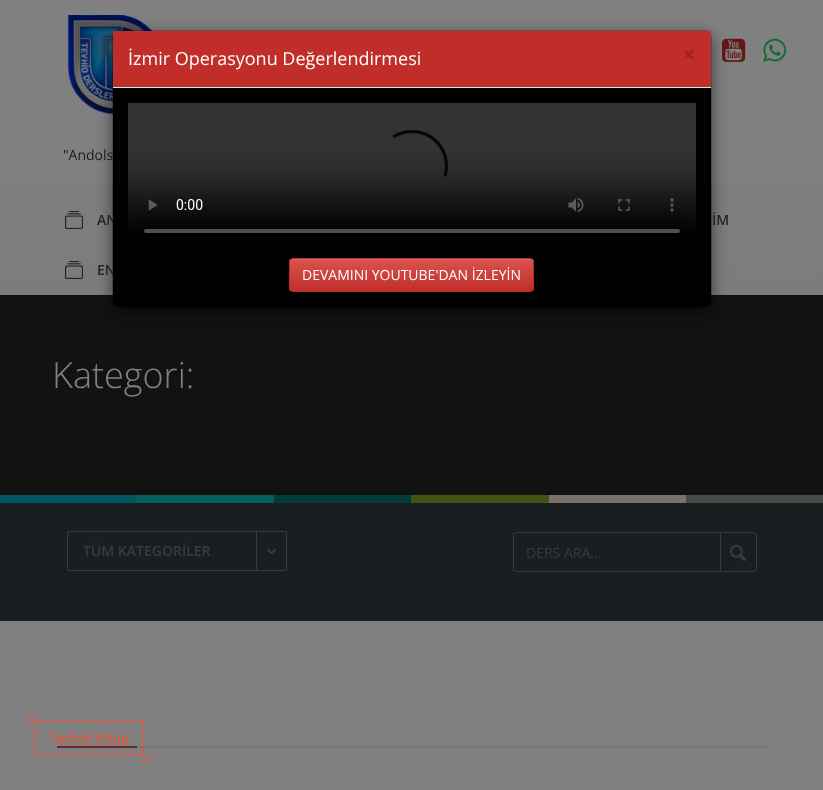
(async () => {
  const canvas = document.querySelector("canvas");
  canvas.width = 823;
  canvas.height = 790;
  const ctx = canvas.getContext("2d");
  ctx.miterLimit = 4;
  ctx.fontKerning = "normal";
  async function loadImage(src) {
    const img = new Image();
    img.src = src;
    await img.decode();
    return img;
  }
  let gradient, path;

  ctx.fillStyle = "#808080";
  ctx.fillRect(0, 0, 823, 790);
  gradient = ctx.createLinearGradient(412, 0, 412, 295);
  gradient.addColorStop(0, "#808080");
  gradient.addColorStop(1, "#7c7c7c");
  ctx.fillStyle = gradient;
  ctx.fillRect(0, 184, 823, 111);
  ctx.drawImage(await loadImage("img/2.png"), 67, 15, 86, 100);
  ctx.drawImage(await loadImage("img/3.png"), 722, 38, 24, 24);
  ctx.fillStyle = "#121212";
  ctx.fillRect(0, 295, 823, 200);
  ctx.fillStyle = "rgba(0, 0, 0, 0.5)";
  ctx.filter = "blur(7.5px)";
  ctx.beginPath();
  ctx.roundRect(112, 35, 600, 278, 6);
  ctx.fill();
  ctx.filter = "none";
  ctx.drawImage(await loadImage("img/4.png"), 763, 38, 24, 24);
  ctx.drawImage(await loadImage("img/5.png"), 65, 211, 18, 18);
  ctx.drawImage(await loadImage("img/6.png"), 65, 261, 18, 18);
  for (const [x, y, w, h, color] of [
    [0, 495, 137, 8, "#025760"],
    [137, 495, 137, 8, "#026060"],
    [274, 495, 137, 8, "#013a3a"],
    [411, 495, 138, 8, "#3f5315"],
    [549, 495, 137, 8, "#79726b"],
    [686, 495, 137, 8, "#4a4a4a"],
    [0, 503, 823, 118, "#191e21"],
  ]) {
    ctx.fillStyle = color;
    ctx.fillRect(x, y, w, h);
  }
  ctx.beginPath();
  ctx.roundRect(67.5, 531.5, 219, 39, 1.5);
  ctx.strokeStyle = "#363c41";
  ctx.stroke();
  ctx.drawImage(await loadImage("img/7.png"), 267, 549, 9, 5);
  ctx.fillStyle = "#363c41";
  ctx.fillRect(256, 532, 1, 38);
  ctx.beginPath();
  ctx.roundRect(513.5, 532.5, 207, 39, [3.5, 0, 0, 3.5]);
  ctx.stroke();
  path = new Path2D("M721 532H753C755 532 757 534 757 536V568C757 570 755 572 753 572H721ZM721 533H753C755 533 756 534 756 536V568C756 570 755 571 753 571H721Z");
  ctx.fill(path, "evenodd");
  ctx.drawImage(await loadImage("img/8.png"), 730, 545, 16, 16);
  ctx.fillStyle = "#747677";
  ctx.fillRect(137, 746, 630, 2);
  ctx.fillStyle = "#74261e";
  ctx.fillRect(57, 746, 80, 2);
  ctx.strokeStyle = "#f24e2f";
  ctx.strokeRect(34.5, 720.5, 109, 35);
  for (const [x, y, w, h, color] of [
    [29, 715, 10, 1, "#f24e2f"],
    [29, 715, 1, 10, "#f24e2f"],
    [148, 751, 1, 10, "#f24e2f"],
    [140, 760, 9, 1, "#f24e2f"],
  ]) {
    ctx.fillStyle = color;
    ctx.fillRect(x, y, w, h);
  }
  ctx.font = "14px Open Sans";
  ctx.fillStyle = "#1a1a1a";
  ctx.fillText("\"Andols", 63, 160);
  ctx.font = "600 14px Open Sans";
  ctx.fillStyle = "#222527";
  for (const [text, x, y] of [
    ["AN", 97, 225],
    ["İM", 712, 225],
    ["EN", 97, 275],
  ]) {
    ctx.fillText(text, x, y);
  }
  ctx.fillStyle = "#000000";
  ctx.beginPath();
  ctx.roundRect(113, 31, 598, 276, 5);
  ctx.fill();
  ctx.beginPath();
  ctx.roundRect(112.5, 30.5, 599, 277, 5.5);
  ctx.strokeStyle = "rgba(0, 0, 0, 0.2)";
  ctx.stroke();
  ctx.save();
  ctx.beginPath();
  ctx.roundRect(289, 258, 245, 34, 4);
  ctx.clip();
  gradient = ctx.createLinearGradient(412, 259, 412, 291);
  gradient.addColorStop(0, "#d9534f");
  gradient.addColorStop(1, "#c12e2a");
  ctx.fillStyle = gradient;
  ctx.fillRect(289, 259, 245, 32);
  ctx.restore();
  ctx.fillStyle = "#df6c69";
  path = new Path2D("M293 260H531L533 261V263C533 261 532 259 530 259H293C291 259 290 261 290 263C290 261 291 260 293 260Z");
  ctx.fill(path);
  ctx.beginPath();
  ctx.roundRect(289.5, 258.5, 244, 33, 3.5);
  ctx.strokeStyle = "#b92c28";
  ctx.stroke();
  ctx.font = "14px Open Sans";
  ctx.fillStyle = "#ffffff";
  ctx.fillText("DEVAMINI YOUTUBE'DAN İZLEYİN", 302, 280);
  ctx.drawImage(await loadImage("img/1.png"), 128, 103, 568, 130);
  ctx.fillStyle = "#c12e2a";
  ctx.fillRect(113, 31, 598, 56);
  ctx.font = "bold 21px Open Sans";
  ctx.fillStyle = "#9a2522";
  ctx.fillText("×", 683, 62);
  ctx.font = "18px Open Sans";
  ctx.fillStyle = "#ffffff";
  ctx.fillText("İzmir Operasyonu Değerlendirmesi", 128, 65);
  ctx.fillStyle = "#e5e5e5";
  ctx.fillRect(113, 87, 598, 1);
  ctx.font = "300 36px Open Sans";
  ctx.fillStyle = "#808080";
  ctx.fillText("Kategori:", 52, 388);
  ctx.font = "600 14px Open Sans";
  ctx.fillStyle = "#363c41";
  ctx.fillText("TÜM KATEGORİLER", 83, 556);
  ctx.font = "14px Open Sans";
  ctx.fillText("DERS ARA...", 526, 558);
  ctx.fillStyle = "#f24e2f";
  ctx.fillText("Tevhid Kitap", 49, 743);
})();
